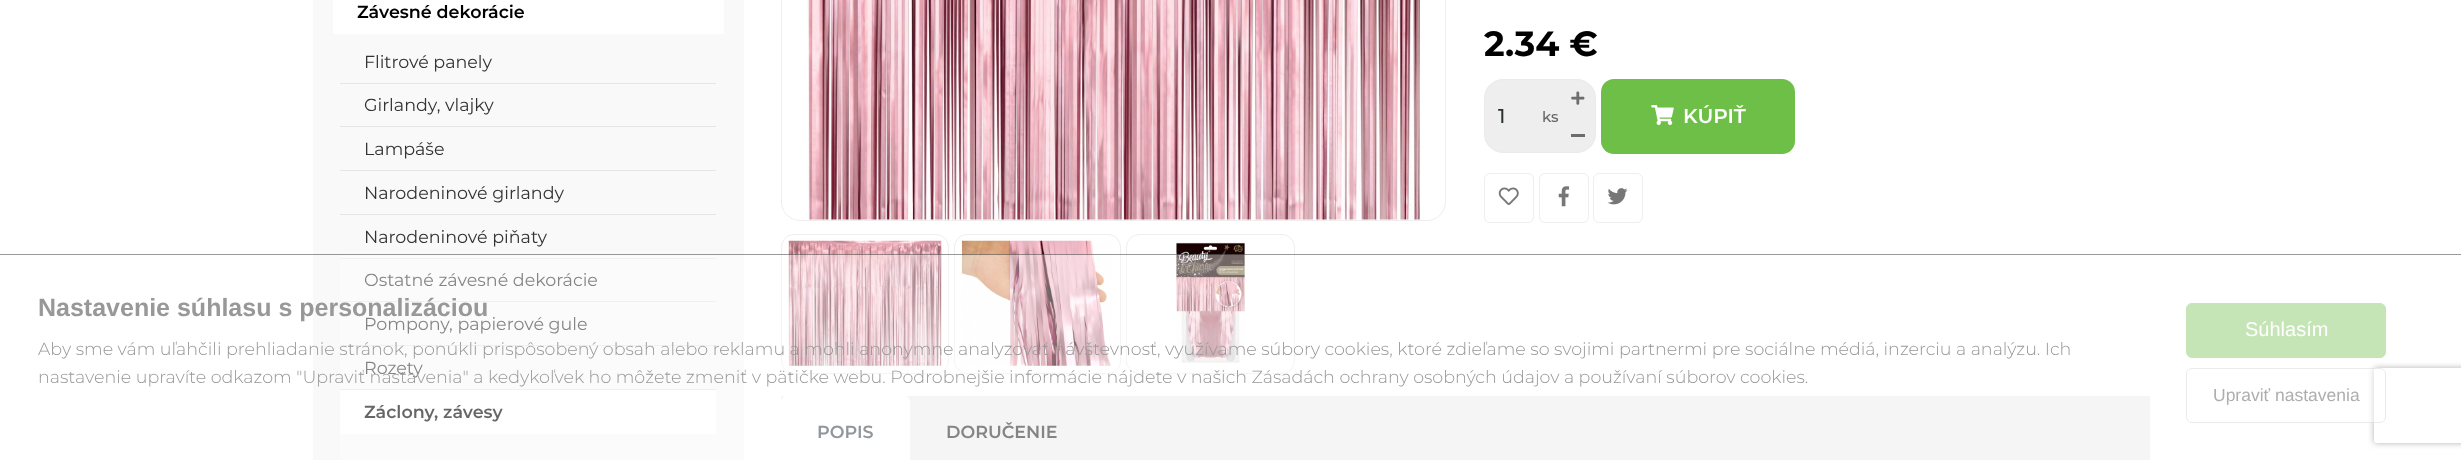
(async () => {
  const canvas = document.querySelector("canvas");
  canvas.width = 2461;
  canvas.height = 460;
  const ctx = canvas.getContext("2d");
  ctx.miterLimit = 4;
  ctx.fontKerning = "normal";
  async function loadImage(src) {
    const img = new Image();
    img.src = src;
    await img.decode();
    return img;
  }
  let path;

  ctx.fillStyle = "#ffffff";
  ctx.fillRect(0, 0, 2461, 460);
  for (const [x, y, w, h, color] of [
    [313, 0, 431, 460, "#f9f9f9"],
    [333, 0, 391, 34, "#ffffff"],
    [340, 83, 376, 1, "#e6e6e6"],
    [340, 126, 376, 1, "#e6e6e6"],
    [340, 170, 376, 1, "#e6e6e6"],
    [340, 214, 376, 1, "#e6e6e6"],
    [340, 258, 376, 1, "#e6e6e6"],
    [340, 301, 376, 1, "#e6e6e6"],
    [340, 345, 376, 1, "#e6e6e6"],
    [340, 389, 376, 1, "#e6e6e6"],
    [340, 390, 376, 44, "#ffffff"],
  ]) {
    ctx.fillStyle = color;
    ctx.fillRect(x, y, w, h);
  }
  ctx.beginPath();
  ctx.roundRect(781.5, -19.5, 664, 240, 18.5);
  ctx.strokeStyle = "#eeeeee";
  ctx.stroke();
  ctx.drawImage(await loadImage("img/1.png"), 807, 0, 613, 220);
  ctx.beginPath();
  ctx.roundRect(781.5, 234.5, 167, 139, 12.5);
  ctx.stroke();
  ctx.drawImage(await loadImage("img/2.png"), 788, 240, 154, 126);
  ctx.beginPath();
  ctx.roundRect(954.5, 234.5, 166, 139, 12.5);
  ctx.stroke();
  ctx.drawImage(await loadImage("img/3.png"), 961, 240, 150, 126);
  ctx.beginPath();
  ctx.roundRect(1126.5, 234.5, 168, 139, 12.5);
  ctx.stroke();
  ctx.drawImage(await loadImage("img/4.png"), 1176, 242, 69, 121);
  ctx.fillStyle = "#eeeeee";
  ctx.beginPath();
  ctx.roundRect(1484.5, 79.5, 111, 73, 18.5);
  ctx.fill();
  ctx.strokeStyle = "#ece9e9";
  ctx.stroke();
  ctx.drawImage(await loadImage("img/5.png"), 1571, 91, 14, 14);
  ctx.fillStyle = "#6d6d6d";
  ctx.fillRect(1571, 134, 14, 3);
  ctx.fillStyle = "#6ebf47";
  ctx.beginPath();
  ctx.roundRect(1601, 79, 194, 75, 13);
  ctx.fill();
  ctx.drawImage(await loadImage("img/6.png"), 1651, 105, 23, 20);
  ctx.beginPath();
  ctx.roundRect(1484.5, 173.5, 49, 49, 5.5);
  ctx.strokeStyle = "#eeeeee";
  ctx.stroke();
  ctx.drawImage(await loadImage("img/7.png"), 1498, 187, 21, 18);
  ctx.beginPath();
  ctx.roundRect(1539.5, 173.5, 49, 49, 5.5);
  ctx.stroke();
  ctx.drawImage(await loadImage("img/8.png"), 1558, 186, 12, 21);
  ctx.beginPath();
  ctx.roundRect(1593.5, 173.5, 49, 49, 5.5);
  ctx.stroke();
  ctx.drawImage(await loadImage("img/9.png"), 1607, 188, 21, 17);
  ctx.fillStyle = "#eeeeee";
  ctx.fillRect(781, 396, 1369, 64);
  ctx.fillStyle = "#ffffff";
  path = new Path2D("M786 396.5H905C907.5 396.5 909.5 398.5 909.5 401V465.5H781.5V401C781.5 398.5 783.5 396.5 786 396.5Z");
  ctx.fill(path);
  ctx.strokeStyle = "#ffffff";
  ctx.stroke(path);
  ctx.save();
  path = new Path2D("M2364 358H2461V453H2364ZM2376.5 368H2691.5C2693 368 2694 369 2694 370.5V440.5C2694 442 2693 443 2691.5 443H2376.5C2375 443 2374 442 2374 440.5V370.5C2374 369 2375 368 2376.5 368Z");
  ctx.clip(path, "evenodd");
  ctx.fillStyle = "#808080";
  ctx.filter = "blur(3px)";
  ctx.beginPath();
  ctx.roundRect(2374, 368, 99, 75, 2.5);
  ctx.fill();
  ctx.filter = "none";
  ctx.restore();
  ctx.font = "600 17.5px Montserrat";
  ctx.fillStyle = "#000000";
  ctx.fillText("Závesné dekorácie", 357, 18);
  ctx.font = "17.5px Montserrat";
  ctx.fillStyle = "#333333";
  for (const [text, x, y] of [
    ["Flitrové panely", 364, 68],
    ["Girlandy, vlajky", 364, 111],
    ["Lampáše", 364, 155],
    ["Narodeninové girlandy", 364, 199],
    ["Narodeninové piňaty", 364, 243],
    ["Ostatné závesné dekorácie", 364, 286],
    ["Pompony, papierové gule", 364, 330],
    ["Rozety", 364, 374],
  ]) {
    ctx.fillText(text, x, y);
  }
  ctx.font = "600 17.5px Montserrat";
  ctx.fillStyle = "#000000";
  ctx.fillText("Záclony, závesy", 364, 418);
  ctx.font = "bold 35px Montserrat";
  ctx.fillText("2.34 €", 1484, 56);
  ctx.font = "500 20px Montserrat";
  ctx.fillStyle = "#2a2f31";
  ctx.fillText("1", 1498, 123);
  ctx.font = "500 15px Montserrat";
  ctx.fillStyle = "#666666";
  ctx.fillText("ks", 1542, 122);
  ctx.font = "600 20px Montserrat";
  ctx.fillStyle = "#ffffff";
  ctx.fillText("KÚPIŤ", 1683, 123);
  ctx.font = "600 17.5px Montserrat";
  ctx.fillStyle = "#495057";
  ctx.fillText("POPIS", 817, 438);
  ctx.fillStyle = "#333333";
  ctx.fillText("DORUČENIE", 946, 438);
  ctx.fillStyle = "rgba(255, 255, 255, 0.4)";
  ctx.fillRect(340, 254, 2121, 206);
  ctx.fillStyle = "rgba(0, 0, 0, 0.4)";
  ctx.fillRect(0, 254, 2461, 1);
  ctx.font = "bold 25px Liberation Sans";
  ctx.fillStyle = "#989898";
  ctx.fillText("Nastavenie súhlasu s personalizáciou", 38, 316);
  ctx.font = "300 17.5px Montserrat";
  ctx.fillText("Aby sme vám uľahčili prehliadanie stránok, ponúkli prispôsobený obsah alebo reklamu a mohli anonymne analyzovať návštevnosť, využívame súbory cookies, ktoré zdieľame so svojimi partnermi pre sociálne médiá, inzerciu a analýzu. Ich", 38, 355);
  ctx.fillText("nastavenie upravíte odkazom \"Upraviť nastavenia\" a kedykoľvek ho môžete zmeniť v pätičke webu. Podrobnejšie informácie nájdete v našich Zásadách ochrany osobných údajov a používaní súborov cookies.", 38, 383);
  ctx.fillStyle = "#c5e5b6";
  ctx.beginPath();
  ctx.roundRect(2186.5, 303.5, 199, 54, 5.5);
  ctx.fill();
  ctx.strokeStyle = "#c5e5b6";
  ctx.stroke();
  ctx.font = "20px Liberation Sans";
  ctx.fillStyle = "#ffffff";
  ctx.fillText("Súhlasím", 2245, 336);
  ctx.fillStyle = "rgba(255, 255, 255, 0.4)";
  ctx.beginPath();
  ctx.roundRect(2186, 368, 200, 55, 6);
  ctx.fill();
  ctx.beginPath();
  ctx.roundRect(2186.5, 368.5, 199, 54, 5.5);
  ctx.strokeStyle = "rgba(204, 204, 204, 0.4)";
  ctx.stroke();
  ctx.font = "17.5px Liberation Sans";
  ctx.fillStyle = "#aeaeae";
  ctx.fillText("Upraviť nastavenia", 2213, 401);
})();
